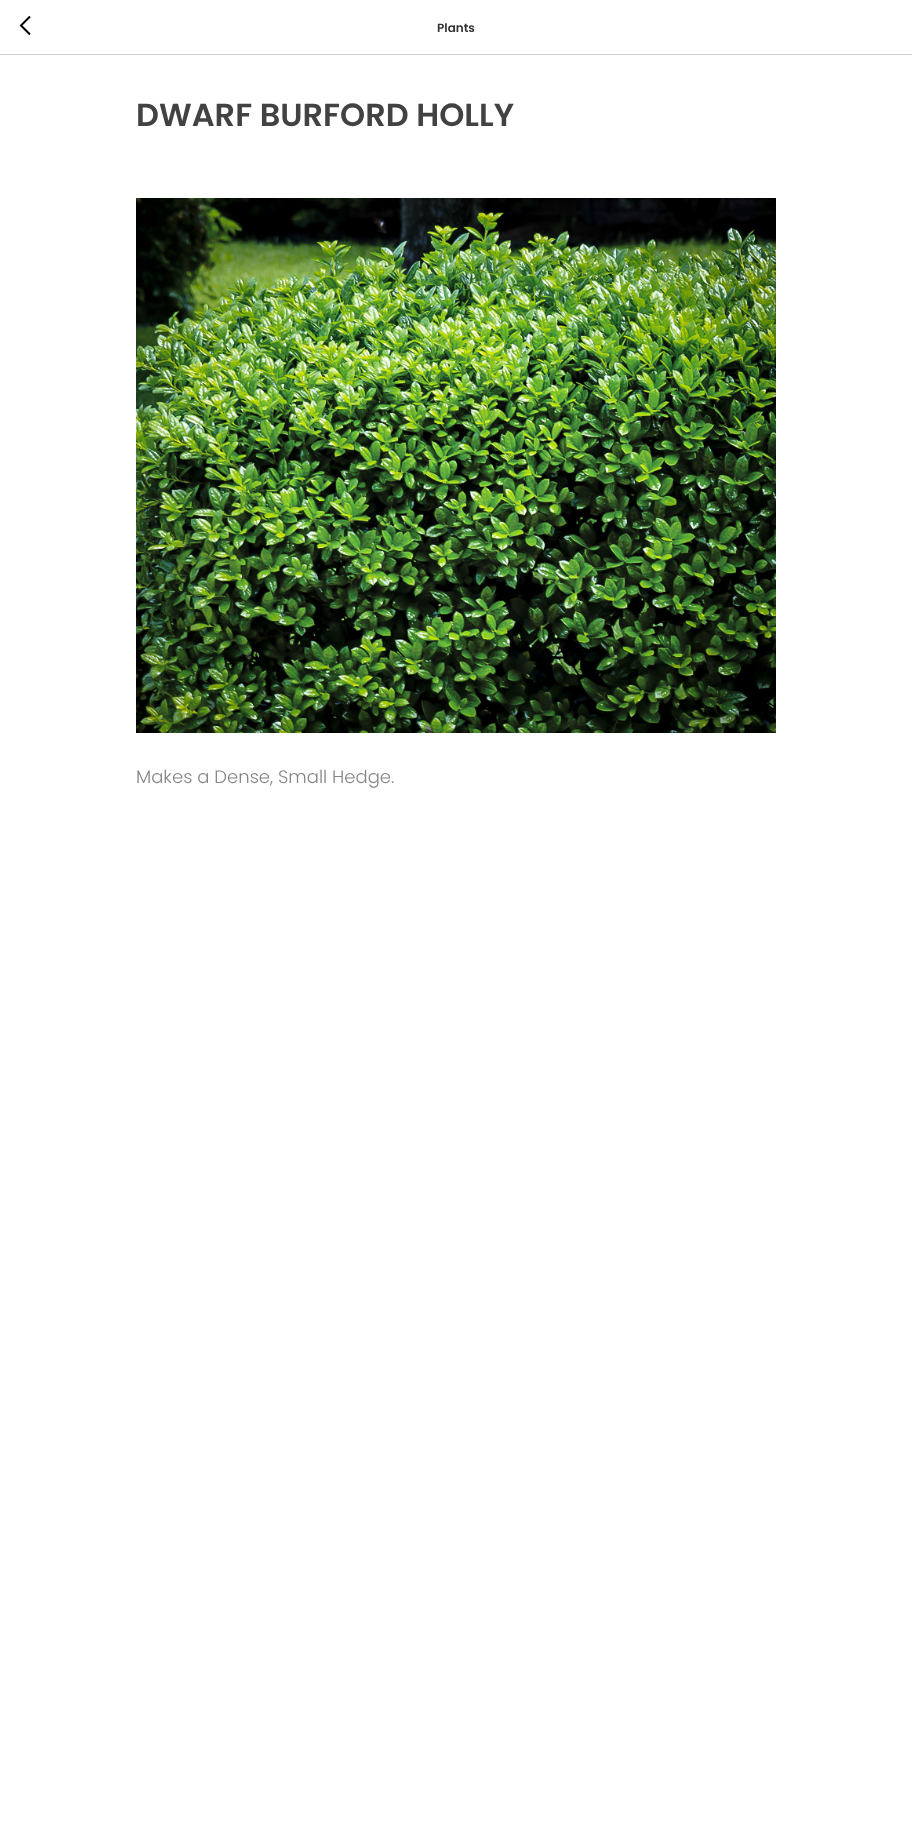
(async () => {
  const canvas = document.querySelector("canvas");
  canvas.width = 912;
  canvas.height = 1821;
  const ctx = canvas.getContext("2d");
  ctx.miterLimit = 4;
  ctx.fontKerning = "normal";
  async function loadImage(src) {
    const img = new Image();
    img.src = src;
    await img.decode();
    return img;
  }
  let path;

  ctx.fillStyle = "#ffffff";
  ctx.fillRect(0, 0, 912, 1821);
  ctx.fillStyle = "#cccccc";
  ctx.fillRect(0, 54, 912, 1);
  path = new Path2D("M30 34.5L21 25.5L30 16.5");
  ctx.strokeStyle = "#000000";
  ctx.lineWidth = 2;
  ctx.stroke(path);
  ctx.drawImage(await loadImage("img/1.png"), 136, 198, 640, 535);
  ctx.font = "600 12px Poppins";
  ctx.fillStyle = "#333333";
  ctx.fillText("Plants", 437, 32);
  ctx.font = "600 32px Poppins";
  ctx.fillStyle = "#424242";
  ctx.fillText("DWARF BURFORD HOLLY", 136, 126);
  ctx.font = "300 18px Poppins";
  ctx.fillStyle = "#858585";
  ctx.fillText("Makes a Dense, Small Hedge.", 136, 783);
})();
